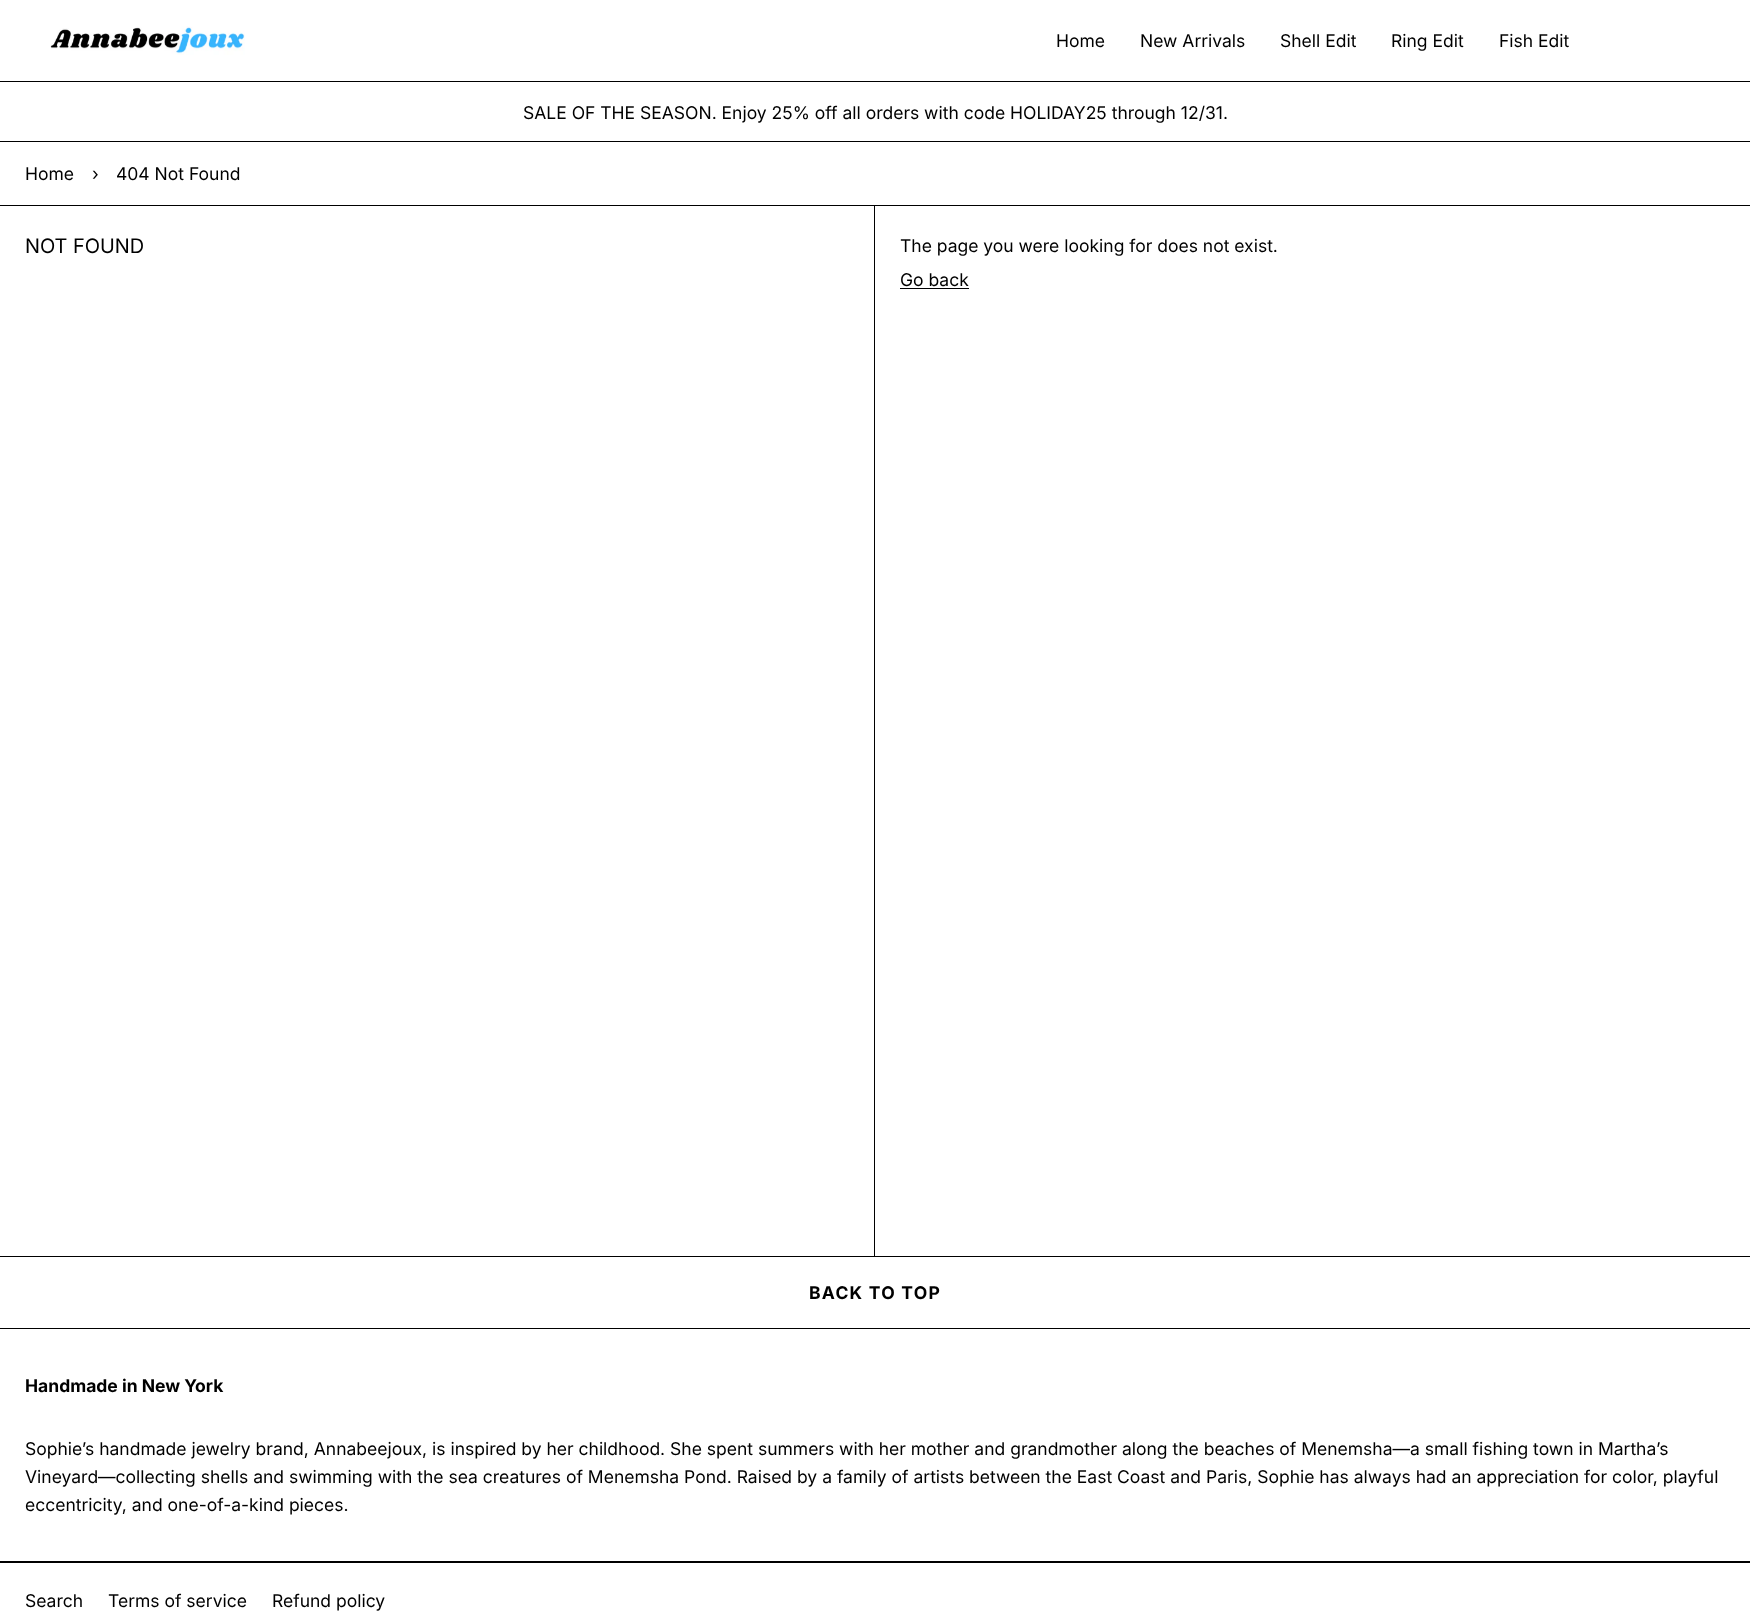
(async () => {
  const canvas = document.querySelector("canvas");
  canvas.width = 1750;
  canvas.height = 1615;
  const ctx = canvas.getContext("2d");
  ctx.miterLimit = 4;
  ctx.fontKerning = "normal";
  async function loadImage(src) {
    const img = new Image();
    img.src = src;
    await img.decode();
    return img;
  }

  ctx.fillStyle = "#ffffff";
  ctx.fillRect(0, 0, 1750, 1615);
  ctx.fillStyle = "#000000";
  ctx.fillRect(0, 81, 1750, 1);
  ctx.drawImage(await loadImage("img/1.png"), 50, 26, 195, 29);
  for (const [x, y, w, h, color] of [
    [0, 141, 1750, 1, "#000000"],
    [0, 205, 1750, 1, "#000000"],
    [0, 1256, 1750, 1, "#000000"],
    [874, 206, 1, 1050, "#000000"],
    [900, 288, 69, 1, "#000001"],
  ]) {
    ctx.fillStyle = color;
    ctx.fillRect(x, y, w, h);
  }
  ctx.strokeStyle = "#000000";
  ctx.strokeRect(-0.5, 1328.5, 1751, 234);
  ctx.strokeRect(-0.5, 1561.5, 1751, 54);
  ctx.font = "17.5px 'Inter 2'";
  ctx.fillStyle = "#000000";
  for (const [text, x, y] of [
    ["Home", 1056, 47],
    ["New Arrivals", 1140, 47],
    ["Shell Edit", 1280, 47],
    ["Ring Edit", 1391, 47],
    ["Fish Edit", 1499, 47],
    ["SALE OF THE SEASON. Enjoy 25% off all orders with code HOLIDAY25 through 12/31.", 523, 119],
    ["Home", 25, 180],
    ["›", 92, 180],
    ["404 Not Found", 116, 180],
  ]) {
    ctx.fillText(text, x, y);
  }
  ctx.font = "20px Inter";
  ctx.fillText("NOT FOUND", 25, 253);
  ctx.font = "17.5px 'Inter 2'";
  ctx.fillText("The page you were looking for does not exist.", 900, 252);
  ctx.fillText("Go back", 900, 286);
  ctx.letterSpacing = "1.25px";
  ctx.font = "bold 17.5px Inter";
  ctx.fillText("BACK TO TOP", 809, 1299);
  ctx.letterSpacing = "0px";
  ctx.fillText("Handmade in New York", 25, 1392);
  ctx.font = "17.5px 'Inter 2'";
  for (const [text, x, y] of [
    ["Sophie’s handmade jewelry brand, Annabeejoux, is inspired by her childhood. She spent summers with her mother and grandmother along the beaches of Menemsha—a small fishing town in Martha’s", 25, 1455],
    ["Vineyard—collecting shells and swimming with the sea creatures of Menemsha Pond. Raised by a family of artists between the East Coast and Paris, Sophie has always had an appreciation for color, playful", 25, 1483],
    ["eccentricity, and one-of-a-kind pieces.", 25, 1511],
    ["Search", 25, 1607],
    ["Terms of service", 108, 1607],
    ["Refund policy", 272, 1607],
  ]) {
    ctx.fillText(text, x, y);
  }
})();
